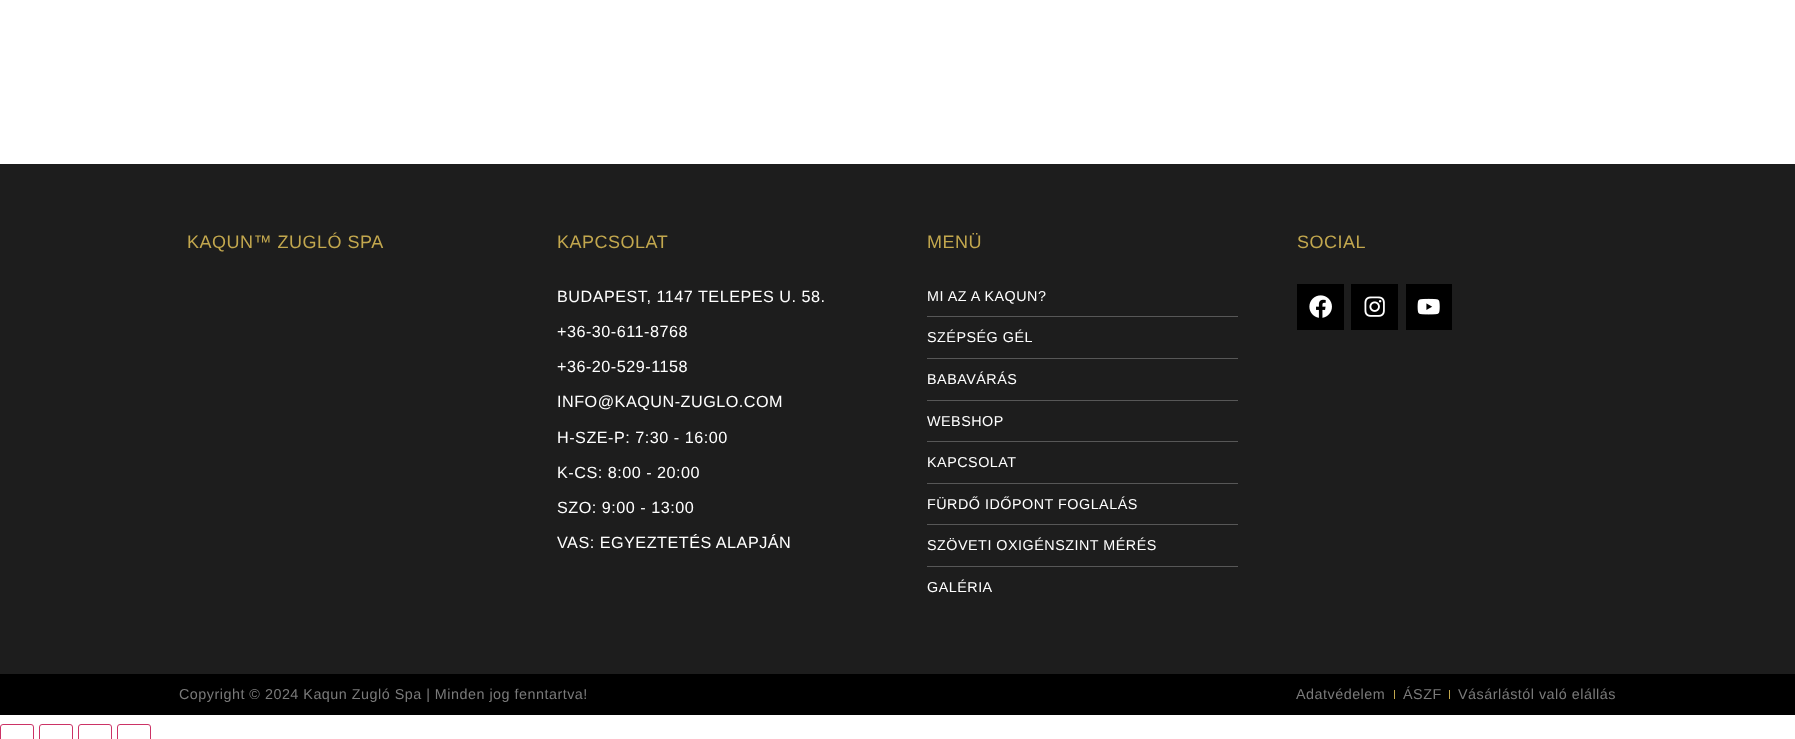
(async () => {
  const canvas = document.querySelector("canvas");
  canvas.width = 1795;
  canvas.height = 739;
  const ctx = canvas.getContext("2d");
  ctx.miterLimit = 4;
  ctx.fontKerning = "normal";
  async function loadImage(src) {
    const img = new Image();
    img.src = src;
    await img.decode();
    return img;
  }

  ctx.fillStyle = "#ffffff";
  ctx.fillRect(0, 0, 1795, 739);
  for (const [x, y, w, h, color] of [
    [0, 164, 1795, 510, "#1d1d1d"],
    [927, 316, 311, 1, "#575757"],
    [927, 358, 311, 1, "#575757"],
    [927, 400, 311, 1, "#575757"],
    [927, 441, 311, 1, "#575757"],
    [927, 483, 311, 1, "#575757"],
    [927, 524, 311, 1, "#575757"],
    [927, 566, 311, 1, "#575757"],
    [1297, 284, 47, 46, "#000000"],
  ]) {
    ctx.fillStyle = color;
    ctx.fillRect(x, y, w, h);
  }
  ctx.drawImage(await loadImage("img/1.png"), 1309, 295, 23, 23);
  ctx.fillRect(1351, 284, 47, 46);
  ctx.drawImage(await loadImage("img/2.png"), 1364, 296, 21, 21);
  ctx.fillRect(1406, 284, 46, 46);
  ctx.drawImage(await loadImage("img/3.png"), 1417, 298, 23, 17);
  for (const [x, y, w, h, color] of [
    [0, 674, 1795, 41, "#000000"],
    [1394, 690, 1, 9, "#c2a74e"],
    [1449, 690, 1, 9, "#c2a74e"],
  ]) {
    ctx.fillStyle = color;
    ctx.fillRect(x, y, w, h);
  }
  ctx.beginPath();
  ctx.roundRect(0.5, 724.5, 33, 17, 2.5);
  ctx.strokeStyle = "#cc3366";
  ctx.stroke();
  ctx.beginPath();
  ctx.roundRect(39.5, 724.5, 33, 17, 2.5);
  ctx.stroke();
  ctx.beginPath();
  ctx.roundRect(78.5, 724.5, 33, 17, 2.5);
  ctx.stroke();
  ctx.beginPath();
  ctx.roundRect(117.5, 724.5, 33, 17, 2.5);
  ctx.stroke();
  ctx.letterSpacing = "0.5px";
  ctx.font = "18px Liberation Sans";
  ctx.fillText("KAQUN™ ZUGLÓ SPA", 187, 248);
  ctx.fillText("KAPCSOLAT", 557, 248);
  ctx.font = "16.2px Liberation Sans";
  ctx.fillStyle = "#ffffff";
  for (const [text, x, y] of [
    ["BUDAPEST, 1147 TELEPES U. 58.", 557, 302],
    ["+36-30-611-8768", 557, 337],
    ["+36-20-529-1158", 557, 372],
    ["INFO@KAQUN-ZUGLO.COM", 557, 407],
    ["H-SZE-P: 7:30 - 16:00", 557, 443],
    ["K-CS: 8:00 - 20:00", 557, 478],
    ["SZO: 9:00 - 13:00", 557, 513],
    ["VAS: EGYEZTETÉS ALAPJÁN", 557, 548],
  ]) {
    ctx.fillText(text, x, y);
  }
  ctx.font = "18px Liberation Sans";
  ctx.fillStyle = "#c2a74e";
  ctx.fillText("MENÜ", 927, 248);
  ctx.font = "14.35px Liberation Sans";
  ctx.fillStyle = "#ffffff";
  for (const [text, x, y] of [
    ["MI AZ A KAQUN?", 927, 301],
    ["SZÉPSÉG GÉL", 927, 342],
    ["BABAVÁRÁS", 927, 384],
    ["WEBSHOP", 927, 426],
    ["KAPCSOLAT", 927, 467],
    ["FÜRDŐ IDŐPONT FOGLALÁS", 927, 509],
    ["SZÖVETI OXIGÉNSZINT MÉRÉS", 927, 550],
    ["GALÉRIA", 927, 592],
  ]) {
    ctx.fillText(text, x, y);
  }
  ctx.font = "18px Liberation Sans";
  ctx.fillStyle = "#c2a74e";
  ctx.fillText("SOCIAL", 1297, 248);
  ctx.font = "14.35px Liberation Sans";
  ctx.fillStyle = "#7a7a7a";
  for (const [text, x, y] of [
    ["Copyright © 2024 Kaqun Zugló Spa | Minden jog fenntartva!", 179, 699],
    ["Adatvédelem", 1296, 699],
    ["ÁSZF", 1403, 699],
    ["Vásárlástól való elállás", 1458, 699],
  ]) {
    ctx.fillText(text, x, y);
  }
})();
